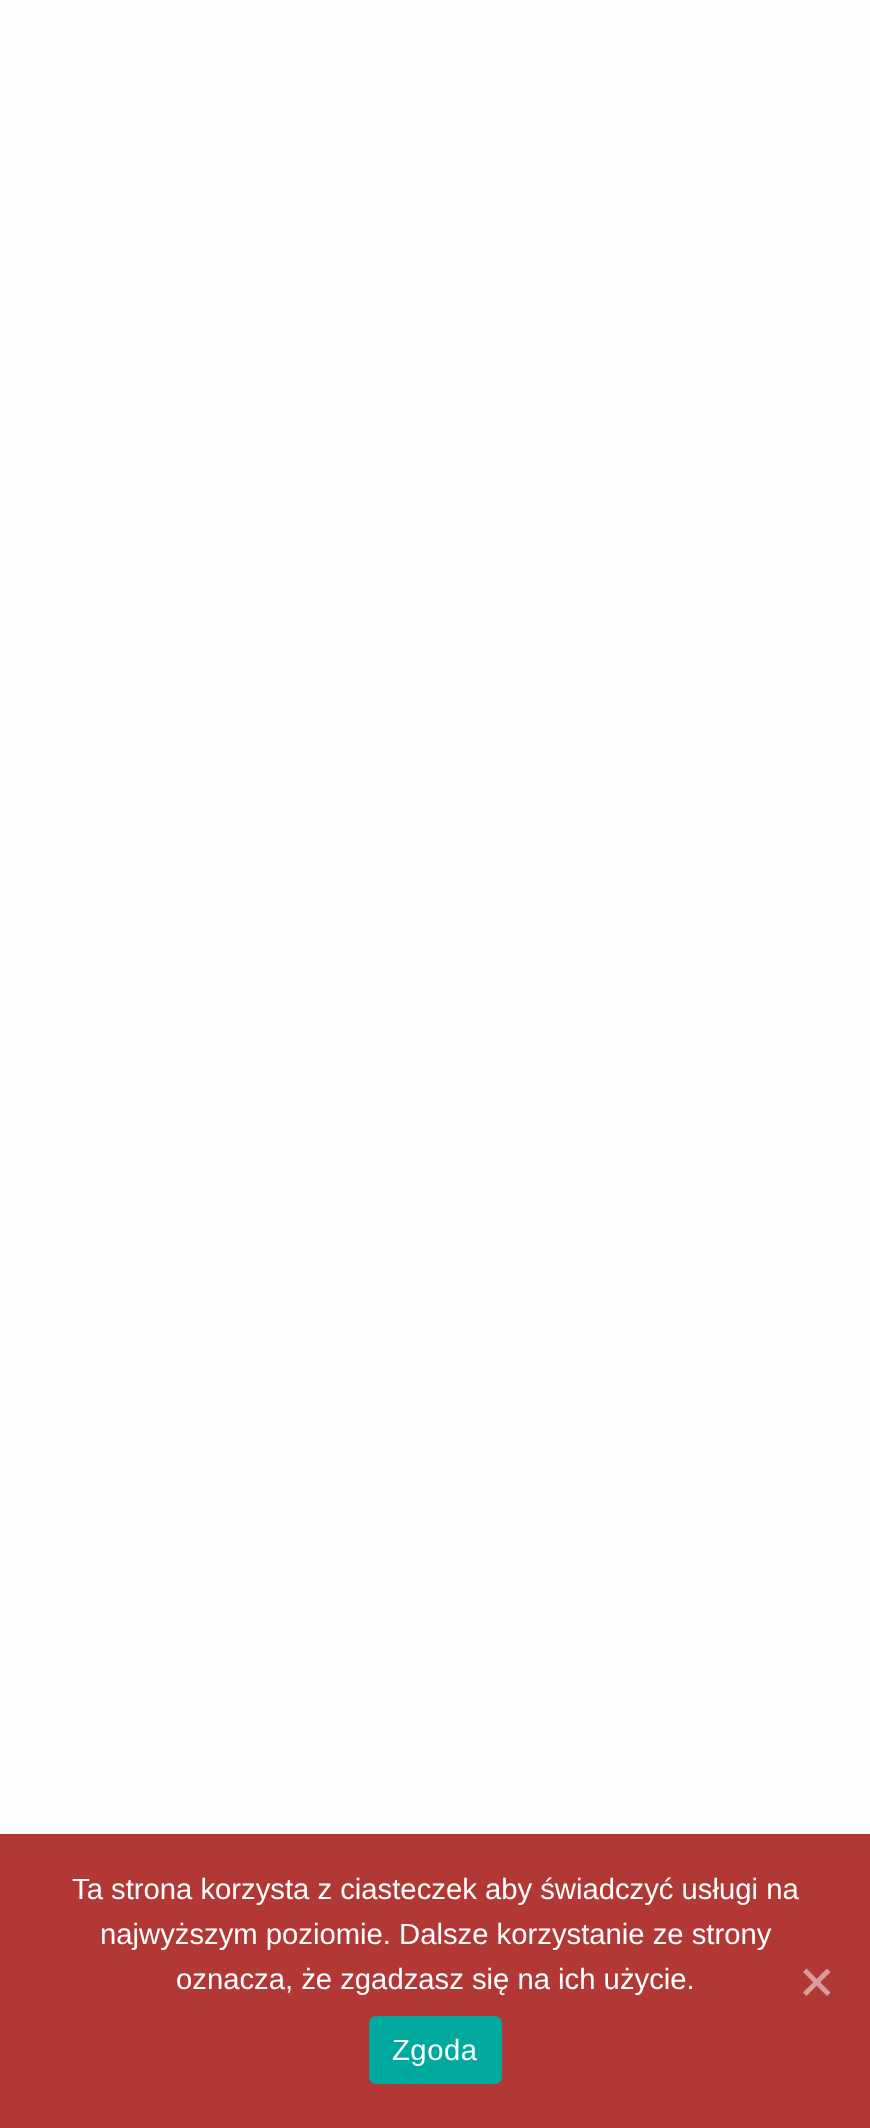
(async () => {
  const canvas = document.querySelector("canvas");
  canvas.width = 870;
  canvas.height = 2128;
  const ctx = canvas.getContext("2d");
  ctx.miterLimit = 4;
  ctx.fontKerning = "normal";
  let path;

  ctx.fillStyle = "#fefefe";
  ctx.fillRect(0, 0, 870, 2128);
  ctx.fillStyle = "#b13835";
  ctx.fillRect(0, 1834, 870, 294);
  ctx.fillStyle = "#d89c9a";
  path = new Path2D("M827 1968.5L830.5 1972L806.5 1996L803 1992.5Z");
  ctx.fill(path);
  path = new Path2D("M803 1972L806.5 1968.5L830.5 1992.5L827 1996Z");
  ctx.fill(path);
  ctx.fillStyle = "#00a99d";
  ctx.beginPath();
  ctx.roundRect(369, 2016, 133, 68, 7);
  ctx.fill();
  ctx.font = "29.25px Liberation Sans";
  ctx.fillStyle = "#ffffff";
  for (const [text, x, y] of [
    ["Ta strona korzysta z ciasteczek aby świadczyć usługi na", 72, 1899],
    ["najwyższym poziomie. Dalsze korzystanie ze strony", 100, 1944],
    ["oznacza, że zgadzasz się na ich użycie.", 176, 1989],
  ]) {
    ctx.fillText(text, x, y);
  }
  ctx.letterSpacing = "0.5px";
  ctx.fillText("Zgoda", 392, 2060);
})();
